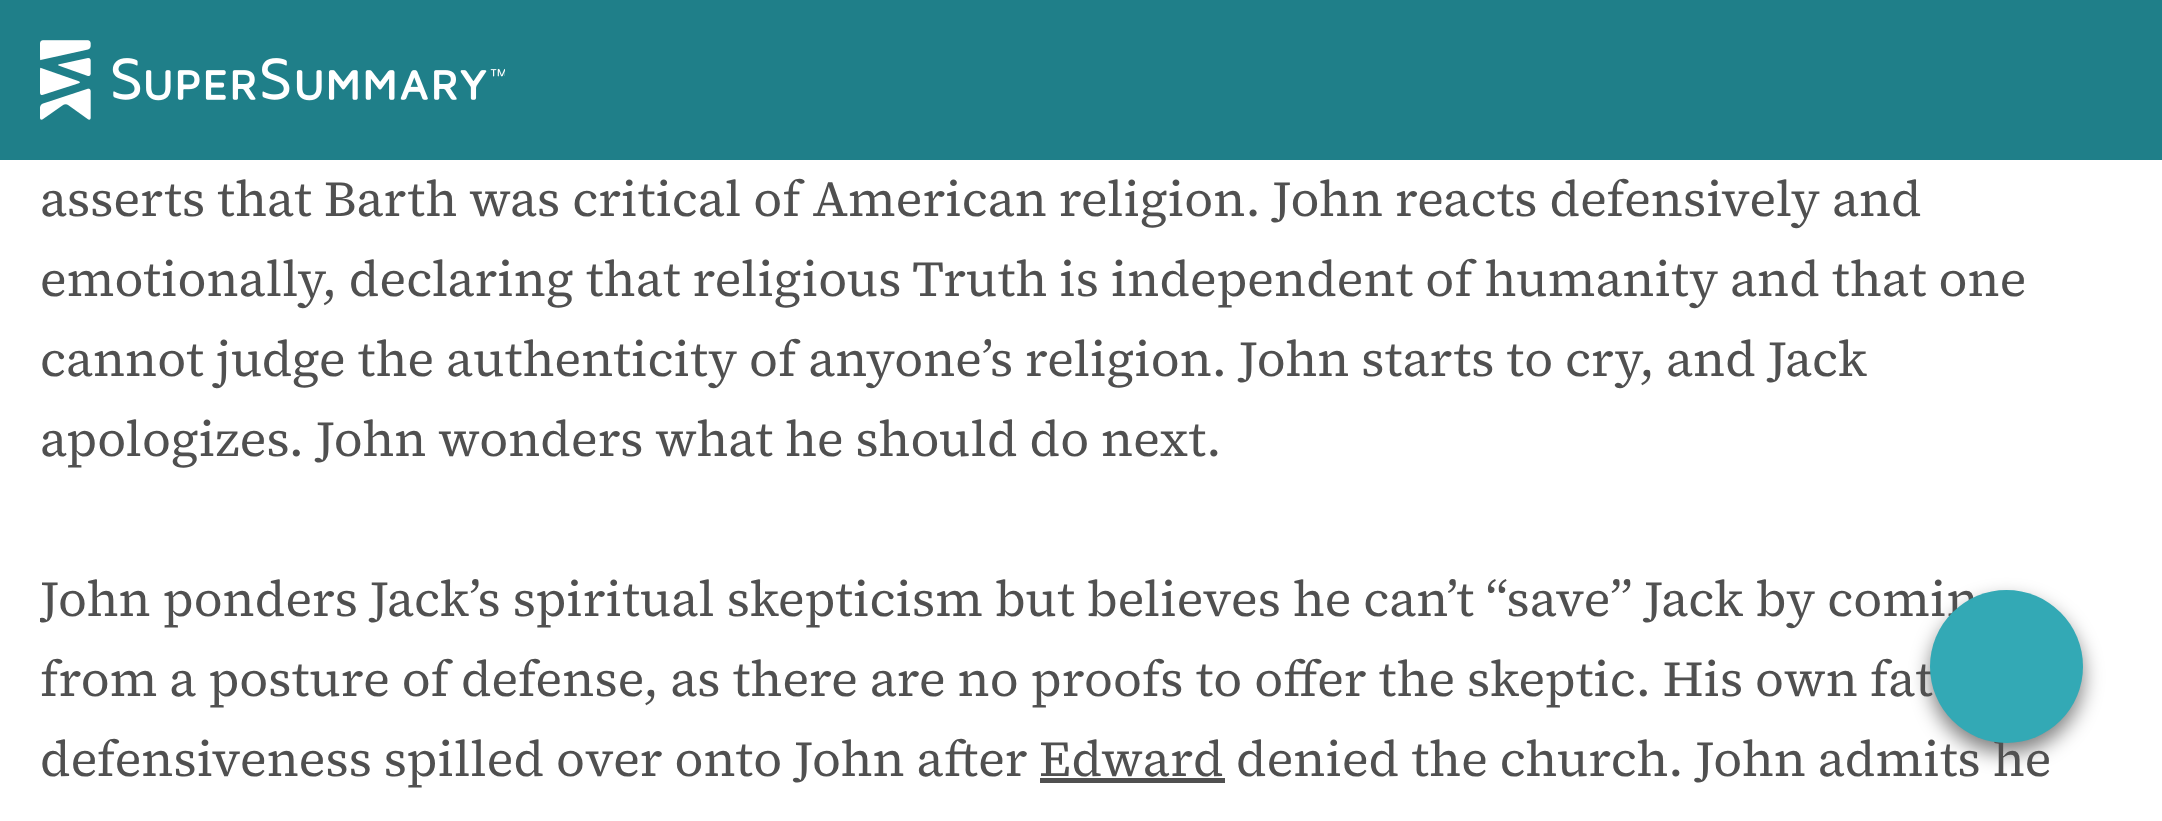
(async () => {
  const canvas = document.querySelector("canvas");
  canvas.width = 2162;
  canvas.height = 821;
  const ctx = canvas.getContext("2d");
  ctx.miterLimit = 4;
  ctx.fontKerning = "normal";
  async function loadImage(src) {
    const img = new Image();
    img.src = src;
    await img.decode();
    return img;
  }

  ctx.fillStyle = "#ffffff";
  ctx.fillRect(0, 0, 2162, 821);
  ctx.fillStyle = "#1f7f89";
  ctx.fillRect(0, 0, 2162, 160);
  ctx.drawImage(await loadImage("img/1.png"), 40, 40, 465, 80);
  ctx.fillStyle = "#505050";
  ctx.fillRect(1040, 778, 185, 5);
  ctx.fillStyle = "rgba(0, 0, 0, 0.5)";
  ctx.filter = "blur(10px)";
  ctx.beginPath();
  ctx.roundRect(1930, 600, 153, 153, 76.5);
  ctx.fill();
  ctx.filter = "none";
  ctx.font = "50px 'Source Serif 4'";
  ctx.fillStyle = "#505050";
  for (const [text, x, y] of [
    ["asserts that Barth was critical of American religion. John reacts defensively and", 40, 216],
    ["emotionally, declaring that religious Truth is independent of humanity and that one", 40, 296],
    ["cannot judge the authenticity of anyone’s religion. John starts to cry, and Jack", 40, 376],
    ["apologizes. John wonders what he should do next.", 40, 456],
  ]) {
    ctx.fillText(text, x, y);
  }
  ctx.save();
  ctx.beginPath();
  ctx.rect(40, 0, 2083, 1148);
  ctx.clip();
  ctx.fillText("John ponders Jack’s spiritual skepticism but believes he can’t “save” Jack by comin", 40, 616);
  ctx.restore();
  ctx.fillText("from a posture of defense, as there are no proofs to offer the skeptic. His own fat", 40, 696);
  ctx.fillText("defensiveness spilled over onto John after", 40, 776);
  ctx.letterSpacing = "0.5px";
  ctx.fillText("Edward", 1039, 776);
  ctx.letterSpacing = "0px";
  ctx.fillText("denied the church. John admits he", 1236, 776);
  ctx.fillStyle = "#33a9b5";
  ctx.beginPath();
  ctx.arc(2006.5, 666.5, 76.5, 0, Math.PI * 2);
  ctx.fill();
})();
